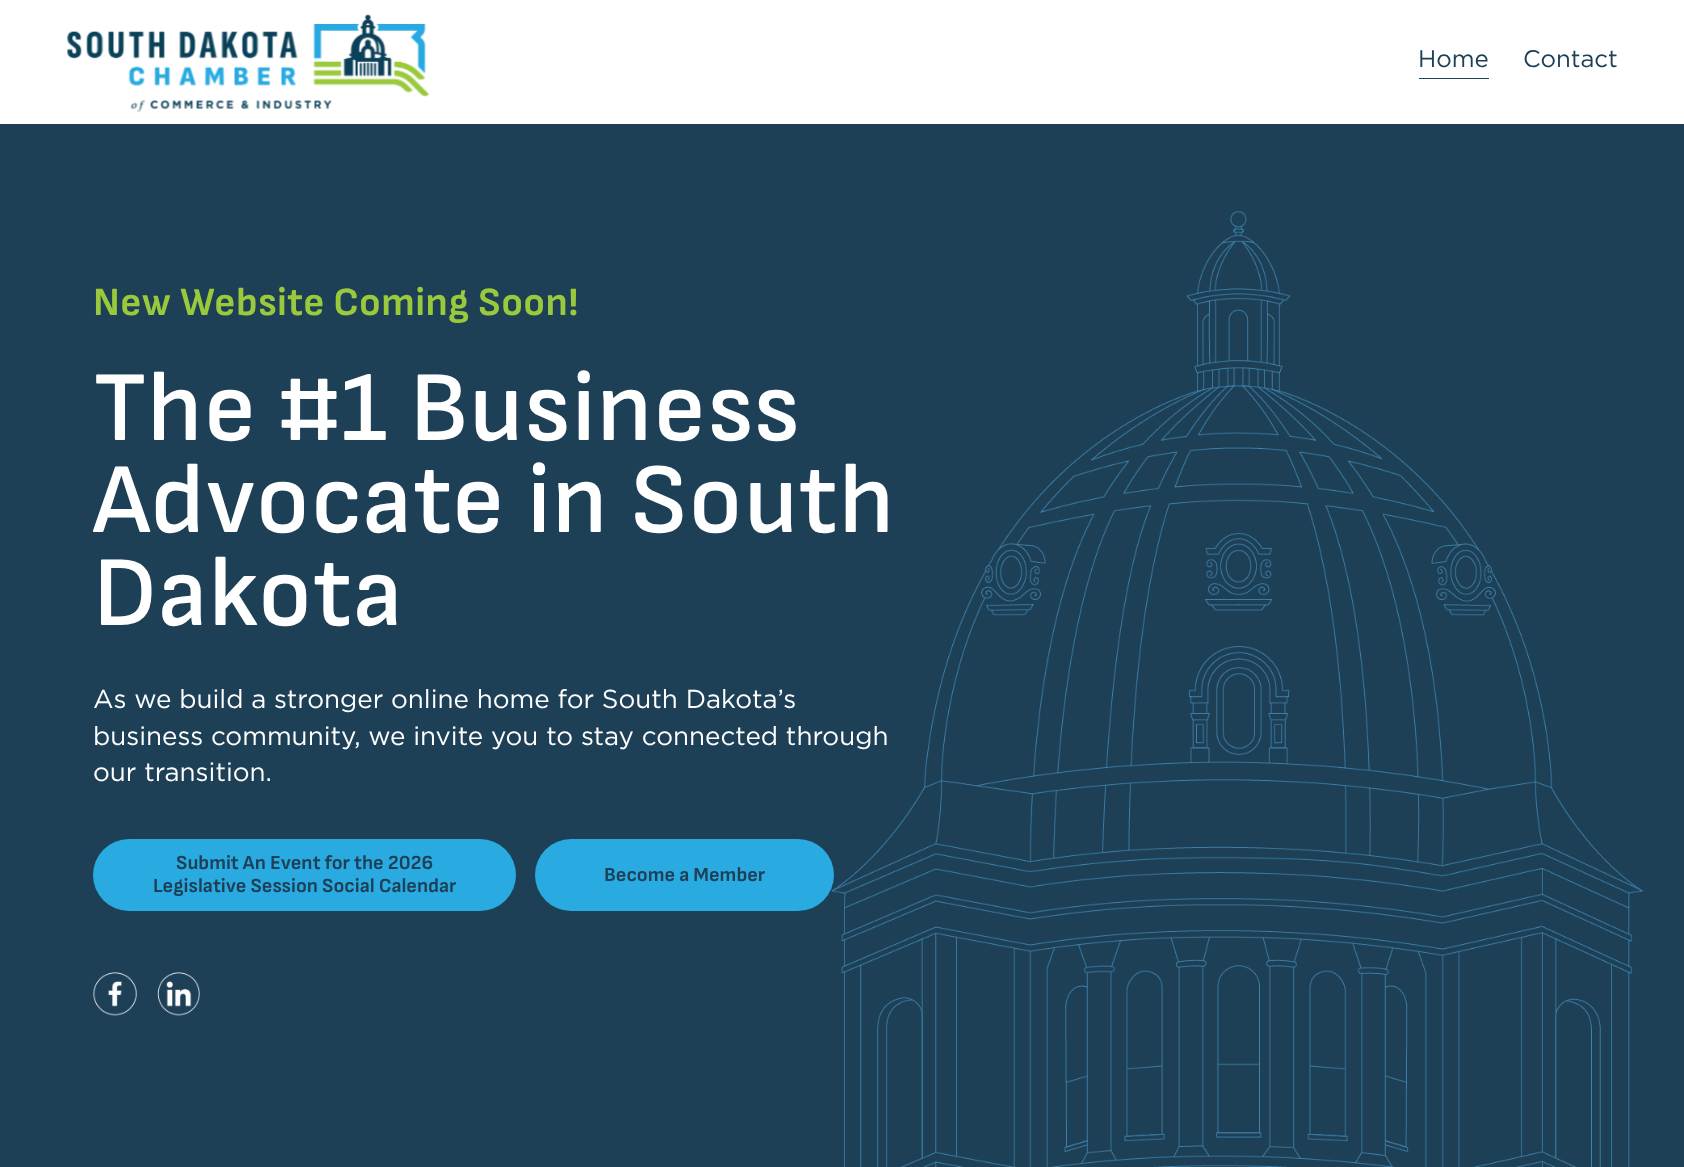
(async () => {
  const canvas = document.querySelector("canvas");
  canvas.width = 1684;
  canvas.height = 1167;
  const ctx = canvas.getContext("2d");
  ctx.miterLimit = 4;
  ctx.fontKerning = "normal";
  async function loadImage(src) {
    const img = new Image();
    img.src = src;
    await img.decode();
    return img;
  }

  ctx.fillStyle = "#1d4057";
  ctx.fillRect(0, 0, 1684, 1167);
  ctx.fillStyle = "#ffffff";
  ctx.fillRect(0, 0, 1684, 124);
  ctx.drawImage(await loadImage("img/1.png"), 67, 14, 363, 98);
  ctx.fillStyle = "#1d4057";
  ctx.fillRect(1419, 78, 70, 1);
  ctx.fillStyle = "#29aae1";
  ctx.beginPath();
  ctx.roundRect(93, 839, 423, 72, 36);
  ctx.fill();
  ctx.drawImage(await loadImage("img/3.png"), 93, 972, 44, 44);
  ctx.drawImage(await loadImage("img/4.png"), 157, 972, 43, 44);
  ctx.font = "24px Gotham";
  ctx.fillStyle = "#1d4057";
  ctx.fillText("Home", 1418, 67);
  ctx.fillText("Contact", 1523, 67);
  ctx.letterSpacing = "0.4px";
  ctx.font = "bold 40px Sofia Sans";
  ctx.fillStyle = "#9aca3c";
  ctx.fillText("New Website Coming Soon!", 93, 315);
  ctx.letterSpacing = "1px";
  ctx.font = "600 100px Sofia Sans";
  ctx.fillStyle = "#ffffff";
  for (const [text, x, y] of [
    ["The #1 Business", 93, 440],
    ["Advocate in South", 93, 532],
    ["Dakota", 93, 625],
  ]) {
    ctx.fillText(text, x, y);
  }
  ctx.letterSpacing = "0px";
  ctx.font = "26px Gotham";
  for (const [text, x, y] of [
    ["As we build a stronger online home for South Dakota’s", 93, 708],
    ["business community, we invite you to stay connected through", 93, 745],
    ["our transition.", 93, 781],
  ]) {
    ctx.fillText(text, x, y);
  }
  ctx.drawImage(await loadImage("img/2.png"), 831, 211, 813, 956);
  ctx.font = "bold 20px Sofia Sans";
  ctx.fillStyle = "#1d4057";
  ctx.fillText("Submit An Event for the 2026", 176, 869);
  ctx.fillText("Legislative Session Social Calendar", 153, 892);
  ctx.fillStyle = "#29aae1";
  ctx.beginPath();
  ctx.roundRect(535, 839, 299, 72, 36);
  ctx.fill();
  ctx.fillStyle = "#1d4057";
  ctx.fillText("Become a Member", 604, 881);
})();
